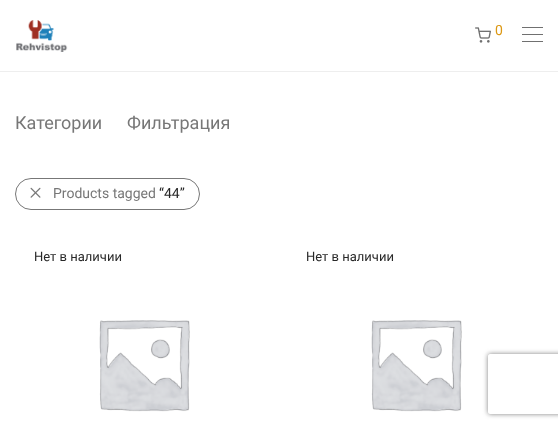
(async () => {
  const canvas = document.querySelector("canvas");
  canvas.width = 558;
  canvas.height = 428;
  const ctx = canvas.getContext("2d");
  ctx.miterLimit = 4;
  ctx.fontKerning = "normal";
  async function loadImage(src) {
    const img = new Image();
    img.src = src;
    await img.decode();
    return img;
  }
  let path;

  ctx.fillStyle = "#ffffff";
  ctx.fillRect(0, 0, 558, 428);
  ctx.fillStyle = "#eeeeee";
  ctx.fillRect(0, 71, 558, 1);
  ctx.drawImage(await loadImage("img/1.png"), 16, 20, 52, 32);
  ctx.drawImage(await loadImage("img/2.png"), 475, 27, 16, 16);
  for (const [x, y, w, h, color] of [
    [522, 27, 21, 1, "#707070"],
    [522, 34, 21, 1, "#707070"],
    [522, 41, 21, 1, "#707070"],
  ]) {
    ctx.fillStyle = color;
    ctx.fillRect(x, y, w, h);
  }
  ctx.beginPath();
  ctx.roundRect(15.5, 178.5, 184, 31, 15.5);
  ctx.strokeStyle = "#777777";
  ctx.stroke();
  ctx.drawImage(await loadImage("img/3.png"), 30, 187, 11, 11);
  ctx.drawImage(await loadImage("img/4.png"), 15, 235, 256, 193);
  ctx.drawImage(await loadImage("img/4.png"), 287, 235, 256, 193);
  ctx.save();
  path = new Path2D("M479 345H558V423H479ZM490 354H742C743 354 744 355 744 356V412C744 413 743 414 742 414H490C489 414 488 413 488 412V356C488 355 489 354 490 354Z");
  ctx.clip(path, "evenodd");
  ctx.fillStyle = "#808080";
  ctx.filter = "blur(2.5px)";
  ctx.beginPath();
  ctx.roundRect(488, 354, 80, 60, 2);
  ctx.fill();
  ctx.filter = "none";
  ctx.restore();
  ctx.font = "14px Roboto";
  ctx.fillStyle = "#dc9814";
  ctx.fillText("0", 495, 35);
  ctx.font = "18px Roboto";
  ctx.fillStyle = "#777777";
  ctx.fillText("Категории", 15, 129);
  ctx.fillText("Фильтрация", 127, 129);
  ctx.font = "14px Roboto";
  ctx.fillText("Products tagged", 53, 198);
  ctx.fillStyle = "#282828";
  ctx.fillText("“44”", 159, 198);
  ctx.font = "13px Roboto";
  ctx.fillText("Нет в наличии", 34, 261);
  ctx.fillText("Нет в наличии", 306, 261);
})();
